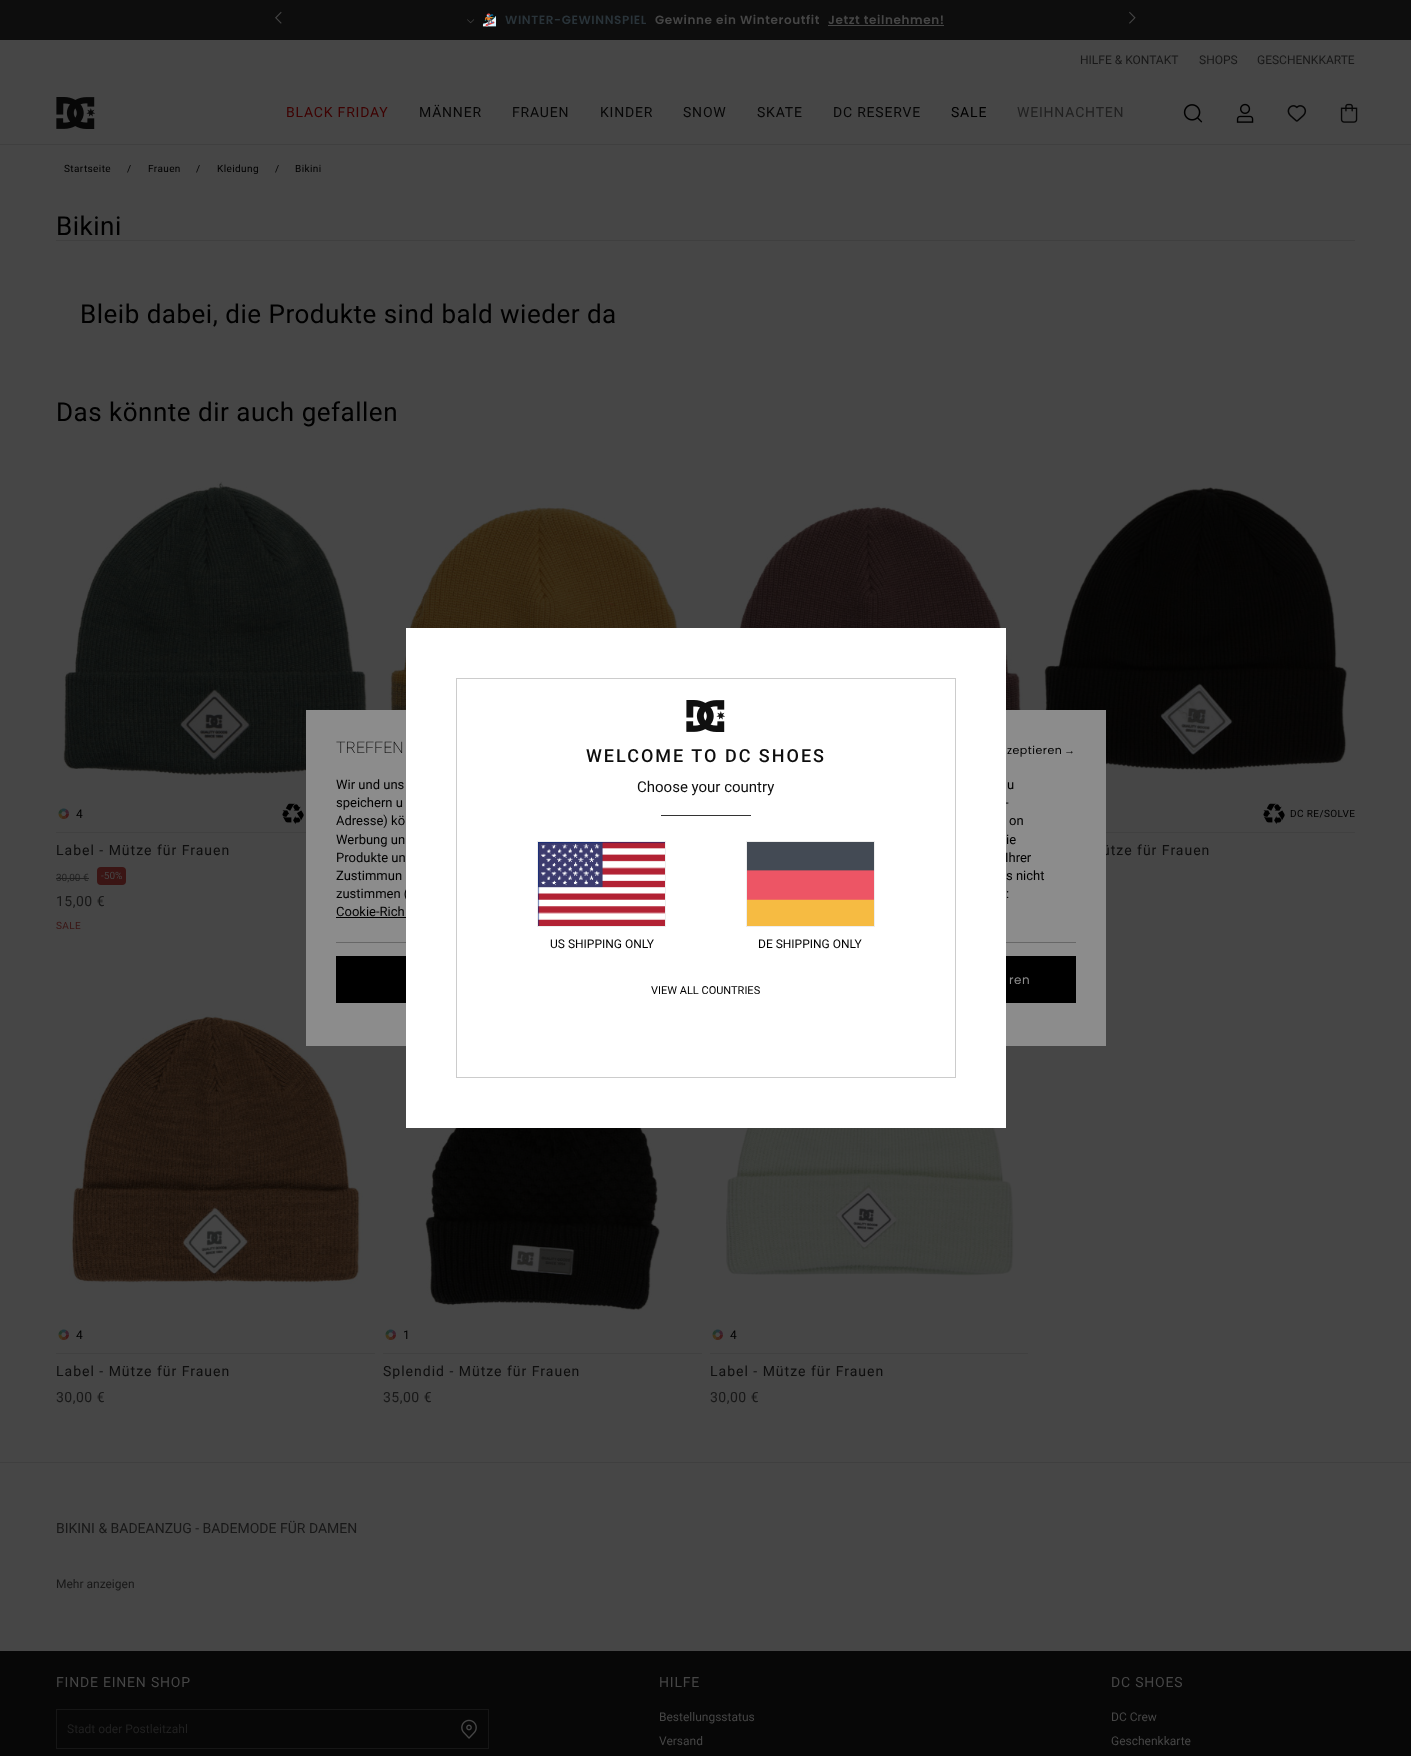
(async () => {
  const canvas = document.querySelector("canvas");
  canvas.width = 1411;
  canvas.height = 1756;
  const ctx = canvas.getContext("2d");
  ctx.miterLimit = 4;
  ctx.fontKerning = "normal";
  async function loadImage(src) {
    const img = new Image();
    img.src = src;
    await img.decode();
    return img;
  }

  ctx.fillStyle = "#464646";
  ctx.fillRect(0, 0, 1411, 1756);
  ctx.fillStyle = "#0d0d0d";
  ctx.fillRect(0, 0, 1411, 40);
  ctx.drawImage(await loadImage("img/1.png"), 275, 11, 7, 13);
  ctx.drawImage(await loadImage("img/2.png"), 467, 19, 8, 5);
  ctx.fillStyle = "#464646";
  ctx.fillRect(828, 25, 116, 1);
  ctx.drawImage(await loadImage("img/3.png"), 1129, 11, 7, 13);
  ctx.fillStyle = "#3f3f3f";
  ctx.fillRect(0, 144, 1411, 1);
  ctx.drawImage(await loadImage("img/4.png"), 56, 97, 39, 32);
  ctx.drawImage(await loadImage("img/5.png"), 1183, 104, 20, 19);
  ctx.drawImage(await loadImage("img/6.png"), 1236, 103, 18, 20);
  ctx.drawImage(await loadImage("img/7.png"), 1287, 105, 20, 17);
  ctx.drawImage(await loadImage("img/8.png"), 1340, 103, 18, 20);
  ctx.fillRect(56, 240, 1299, 1);
  ctx.drawImage(await loadImage("img/9.png"), 389, 504, 308, 206);
  ctx.drawImage(await loadImage("img/10.png"), 716, 504, 307, 206);
  ctx.drawImage(await loadImage("img/11.png"), 62, 481, 307, 295);
  ctx.drawImage(await loadImage("img/12.png"), 58, 808, 11, 11);
  ctx.drawImage(await loadImage("img/13.png"), 282, 803, 22, 21);
  ctx.fillStyle = "#404040";
  ctx.fillRect(56, 832, 250, 1);
  ctx.fillStyle = "#212121";
  ctx.fillRect(56, 878, 33, 1);
  ctx.fillStyle = "#3a1514";
  ctx.beginPath();
  ctx.roundRect(97, 867, 29, 18, 4);
  ctx.fill();
  ctx.drawImage(await loadImage("img/14.png"), 1043, 487, 305, 286);
  ctx.drawImage(await loadImage("img/13.png"), 1263, 803, 22, 21);
  ctx.fillStyle = "#404040";
  ctx.fillRect(1106, 832, 249, 1);
  ctx.drawImage(await loadImage("img/15.png"), 69, 1014, 294, 270);
  ctx.drawImage(await loadImage("img/12.png"), 58, 1329, 11, 11);
  ctx.fillRect(56, 1353, 319, 1);
  ctx.drawImage(await loadImage("img/16.png"), 425, 1128, 235, 183);
  ctx.drawImage(await loadImage("img/12.png"), 385, 1329, 11, 11);
  ctx.fillRect(383, 1353, 319, 1);
  ctx.drawImage(await loadImage("img/17.png"), 725, 1046, 289, 230);
  ctx.drawImage(await loadImage("img/12.png"), 712, 1329, 11, 11);
  for (const [x, y, w, h, color] of [
    [710, 1353, 318, 1, "#404040"],
    [0, 1462, 1411, 1, "#3f3f3f"],
    [0, 1651, 1411, 105, "#070707"],
  ]) {
    ctx.fillStyle = color;
    ctx.fillRect(x, y, w, h);
  }
  ctx.strokeStyle = "#161616";
  ctx.strokeRect(56.5, 1709.5, 432, 39);
  ctx.drawImage(await loadImage("img/18.png"), 461, 1719, 16, 20);
  ctx.font = "12px Noto Color Emoji";
  ctx.fillStyle = "#464646";
  ctx.fillText("🏂", 482, 24);
  ctx.letterSpacing = "0.6px";
  ctx.font = "600 12px Poppins";
  ctx.fillStyle = "#293339";
  ctx.fillText("WINTER-GEWINNSPIEL", 505, 24);
  ctx.fillStyle = "#464646";
  ctx.fillText("Gewinne ein Winteroutfit", 655, 24);
  ctx.fillText("Jetzt teilnehmen!", 828, 24);
  ctx.letterSpacing = "0px";
  ctx.font = "12px Roboto";
  ctx.fillStyle = "#181818";
  for (const [text, x, y] of [
    ["HILFE & KONTAKT", 1080, 64],
    ["SHOPS", 1199, 64],
    ["GESCHENKKARTE", 1257, 64],
  ]) {
    ctx.fillText(text, x, y);
  }
  ctx.letterSpacing = "0.8px";
  ctx.font = "14px Roboto";
  ctx.fillStyle = "#3e0202";
  ctx.fillText("BLACK FRIDAY", 286, 117);
  ctx.fillStyle = "#070707";
  for (const [text, x, y] of [
    ["MÄNNER", 419, 117],
    ["FRAUEN", 512, 117],
    ["KINDER", 600, 117],
    ["SNOW", 683, 117],
    ["SKATE", 757, 117],
    ["DC RESERVE", 833, 117],
  ]) {
    ctx.fillText(text, x, y);
  }
  ctx.fillStyle = "#000000";
  ctx.fillText("SALE", 951, 117);
  ctx.fillStyle = "#212121";
  ctx.fillText("WEIHNACHTEN", 1017, 117);
  ctx.letterSpacing = "0.4px";
  ctx.font = "10px Roboto";
  ctx.fillStyle = "#000000";
  for (const [text, x, y] of [
    ["Startseite", 64, 172],
    ["/", 127, 172],
    ["Frauen", 148, 172],
    ["/", 196, 172],
    ["Kleidung", 217, 172],
    ["/", 275, 172],
    ["Bikini", 295, 172],
  ]) {
    ctx.fillText(text, x, y);
  }
  ctx.letterSpacing = "0.5px";
  ctx.font = "26px Roboto";
  for (const [text, x, y] of [
    ["Bikini", 56, 235],
    ["Bleib dabei, die Produkte sind bald wieder da", 80, 323],
    ["Das könnte dir auch gefallen", 56, 421],
  ]) {
    ctx.fillText(text, x, y);
  }
  ctx.letterSpacing = "0px";
  ctx.font = "12px Roboto";
  ctx.fillText("4", 76, 818);
  ctx.letterSpacing = "1px";
  ctx.font = "14px Roboto";
  ctx.fillStyle = "#0e0e0e";
  ctx.fillText("Label ‑ Mütze für Frauen", 56, 855);
  ctx.letterSpacing = "0px";
  ctx.font = "10px Roboto";
  ctx.fillStyle = "#212121";
  ctx.fillText("30,00 €", 56, 881);
  ctx.fillStyle = "#464646";
  ctx.fillText("-50%", 101, 879);
  ctx.letterSpacing = "0.5px";
  ctx.font = "14px Roboto";
  ctx.fillStyle = "#181818";
  ctx.fillText("15,00 €", 56, 906);
  ctx.letterSpacing = "0.4px";
  ctx.font = "10px Roboto";
  ctx.fillStyle = "#3a1514";
  ctx.fillText("SALE", 56, 929);
  ctx.fillStyle = "#000000";
  ctx.fillText("DC RE/SOLVE", 1290, 817);
  ctx.letterSpacing = "1px";
  ctx.font = "14px Roboto";
  ctx.fillStyle = "#0e0e0e";
  ctx.fillText("ütze für Frauen", 1102, 855);
  ctx.letterSpacing = "0px";
  ctx.font = "12px Roboto";
  ctx.fillStyle = "#000000";
  ctx.fillText("4", 76, 1339);
  ctx.letterSpacing = "1px";
  ctx.font = "14px Roboto";
  ctx.fillStyle = "#0e0e0e";
  ctx.fillText("Label ‑ Mütze für Frauen", 56, 1376);
  ctx.letterSpacing = "0.5px";
  ctx.fillStyle = "#181818";
  ctx.fillText("30,00 €", 56, 1402);
  ctx.letterSpacing = "0px";
  ctx.font = "12px Roboto";
  ctx.fillStyle = "#000000";
  ctx.fillText("1", 403, 1339);
  ctx.letterSpacing = "1px";
  ctx.font = "14px Roboto";
  ctx.fillStyle = "#0e0e0e";
  ctx.fillText("Splendid ‑ Mütze für Frauen", 383, 1376);
  ctx.letterSpacing = "0.5px";
  ctx.fillStyle = "#181818";
  ctx.fillText("35,00 €", 383, 1402);
  ctx.letterSpacing = "0px";
  ctx.font = "12px Roboto";
  ctx.fillStyle = "#000000";
  ctx.fillText("4", 730, 1339);
  ctx.letterSpacing = "1px";
  ctx.font = "14px Roboto";
  ctx.fillStyle = "#0e0e0e";
  ctx.fillText("Label ‑ Mütze für Frauen", 710, 1376);
  ctx.letterSpacing = "0.5px";
  ctx.fillStyle = "#181818";
  ctx.fillText("30,00 €", 710, 1402);
  ctx.letterSpacing = "0px";
  ctx.fillText("BIKINI & BADEANZUG - BADEMODE FÜR DAMEN", 56, 1533);
  ctx.font = "12px Roboto";
  ctx.fillText("Mehr anzeigen", 56, 1588);
  ctx.letterSpacing = "0.8px";
  ctx.font = "14px Roboto";
  ctx.fillStyle = "#464646";
  ctx.fillText("FINDE EINEN SHOP", 56, 1687);
  ctx.letterSpacing = "0px";
  ctx.font = "12px Roboto";
  ctx.fillStyle = "#212121";
  ctx.fillText("Stadt oder Postleitzahl", 67, 1733);
  ctx.letterSpacing = "0.8px";
  ctx.font = "14px Roboto";
  ctx.fillStyle = "#464646";
  ctx.fillText("HILFE", 659, 1687);
  ctx.letterSpacing = "0px";
  ctx.font = "12px Roboto";
  ctx.fillText("Bestellungsstatus", 659, 1721);
  ctx.fillText("Versand", 659, 1745);
  ctx.letterSpacing = "0.8px";
  ctx.font = "14px Roboto";
  ctx.fillText("DC SHOES", 1111, 1687);
  ctx.letterSpacing = "0px";
  ctx.font = "12px Roboto";
  ctx.fillText("DC Crew", 1111, 1721);
  ctx.fillText("Geschenkkarte", 1111, 1745);
  ctx.fillStyle = "#8c8c8c";
  ctx.fillRect(306, 710, 800, 336);
  ctx.font = "200 16px Roboto";
  ctx.fillStyle = "#000000";
  ctx.fillText("TREFFEN", 336, 753);
  ctx.font = "13px Roboto";
  for (const [text, x, y] of [
    ["Wir und uns", 336, 789],
    ["u", 1007, 789],
    ["speichern u", 336, 807],
    ["-", 1005, 807],
    ["Adresse) kö", 336, 825],
    ["on", 1009, 825],
    ["Werbung un", 336, 844],
    ["ie", 1006, 844],
    ["Produkte un", 336, 862],
    ["Ihrer", 1005, 862],
    ["Zustimmun", 336, 880],
    ["s nicht", 1006, 880],
    ["zustimmen (", 336, 898],
    [":", 1006, 898],
    ["Cookie-Rich", 336, 916],
  ]) {
    ctx.fillText(text, x, y);
  }
  ctx.fillRect(336, 917, 70, 1);
  ctx.fillStyle = "#676767";
  ctx.fillRect(336, 942, 740, 1);
  ctx.letterSpacing = "0.5px";
  ctx.font = "11px Poppins";
  ctx.fillStyle = "#000000";
  ctx.fillText("zeptieren", 1007, 754);
  ctx.font = "11px Liberation Sans";
  ctx.fillText("→", 1064, 754);
  ctx.fillRect(336, 956, 70, 47);
  ctx.fillRect(1006, 956, 70, 47);
  ctx.letterSpacing = "0.6px";
  ctx.font = "12px Poppins";
  ctx.fillStyle = "#8c8c8c";
  ctx.fillText("ren", 1009, 984);
  ctx.fillStyle = "#ffffff";
  ctx.fillRect(406, 628, 600, 500);
  ctx.strokeStyle = "#cccccc";
  ctx.strokeRect(456.5, 678.5, 499, 399);
  ctx.drawImage(await loadImage("img/19.png"), 686, 700, 39, 32);
  ctx.letterSpacing = "2px";
  ctx.font = "500 18px Roboto";
  ctx.fillStyle = "#0e0e0e";
  ctx.fillText("WELCOME TO DC SHOES", 586, 762);
  ctx.letterSpacing = "0px";
  ctx.font = "15px Roboto";
  ctx.fillText("Choose your country", 637, 792);
  ctx.fillStyle = "#333333";
  ctx.fillRect(661, 815, 90, 1);
  ctx.strokeStyle = "#eeeeee";
  ctx.strokeRect(537.5, 841.5, 128, 85);
  ctx.drawImage(await loadImage("img/20.png"), 538, 842, 127, 84);
  ctx.font = "12px Roboto";
  ctx.fillStyle = "#000000";
  ctx.fillText("US SHIPPING ONLY", 550, 948);
  ctx.strokeRect(746.5, 841.5, 128, 85);
  ctx.drawImage(await loadImage("img/21.png"), 747, 842, 127, 84);
  ctx.fillText("DE SHIPPING ONLY", 758, 948);
  ctx.font = "11px Roboto";
  ctx.fillText("VIEW ALL COUNTRIES", 651, 994);
})();
